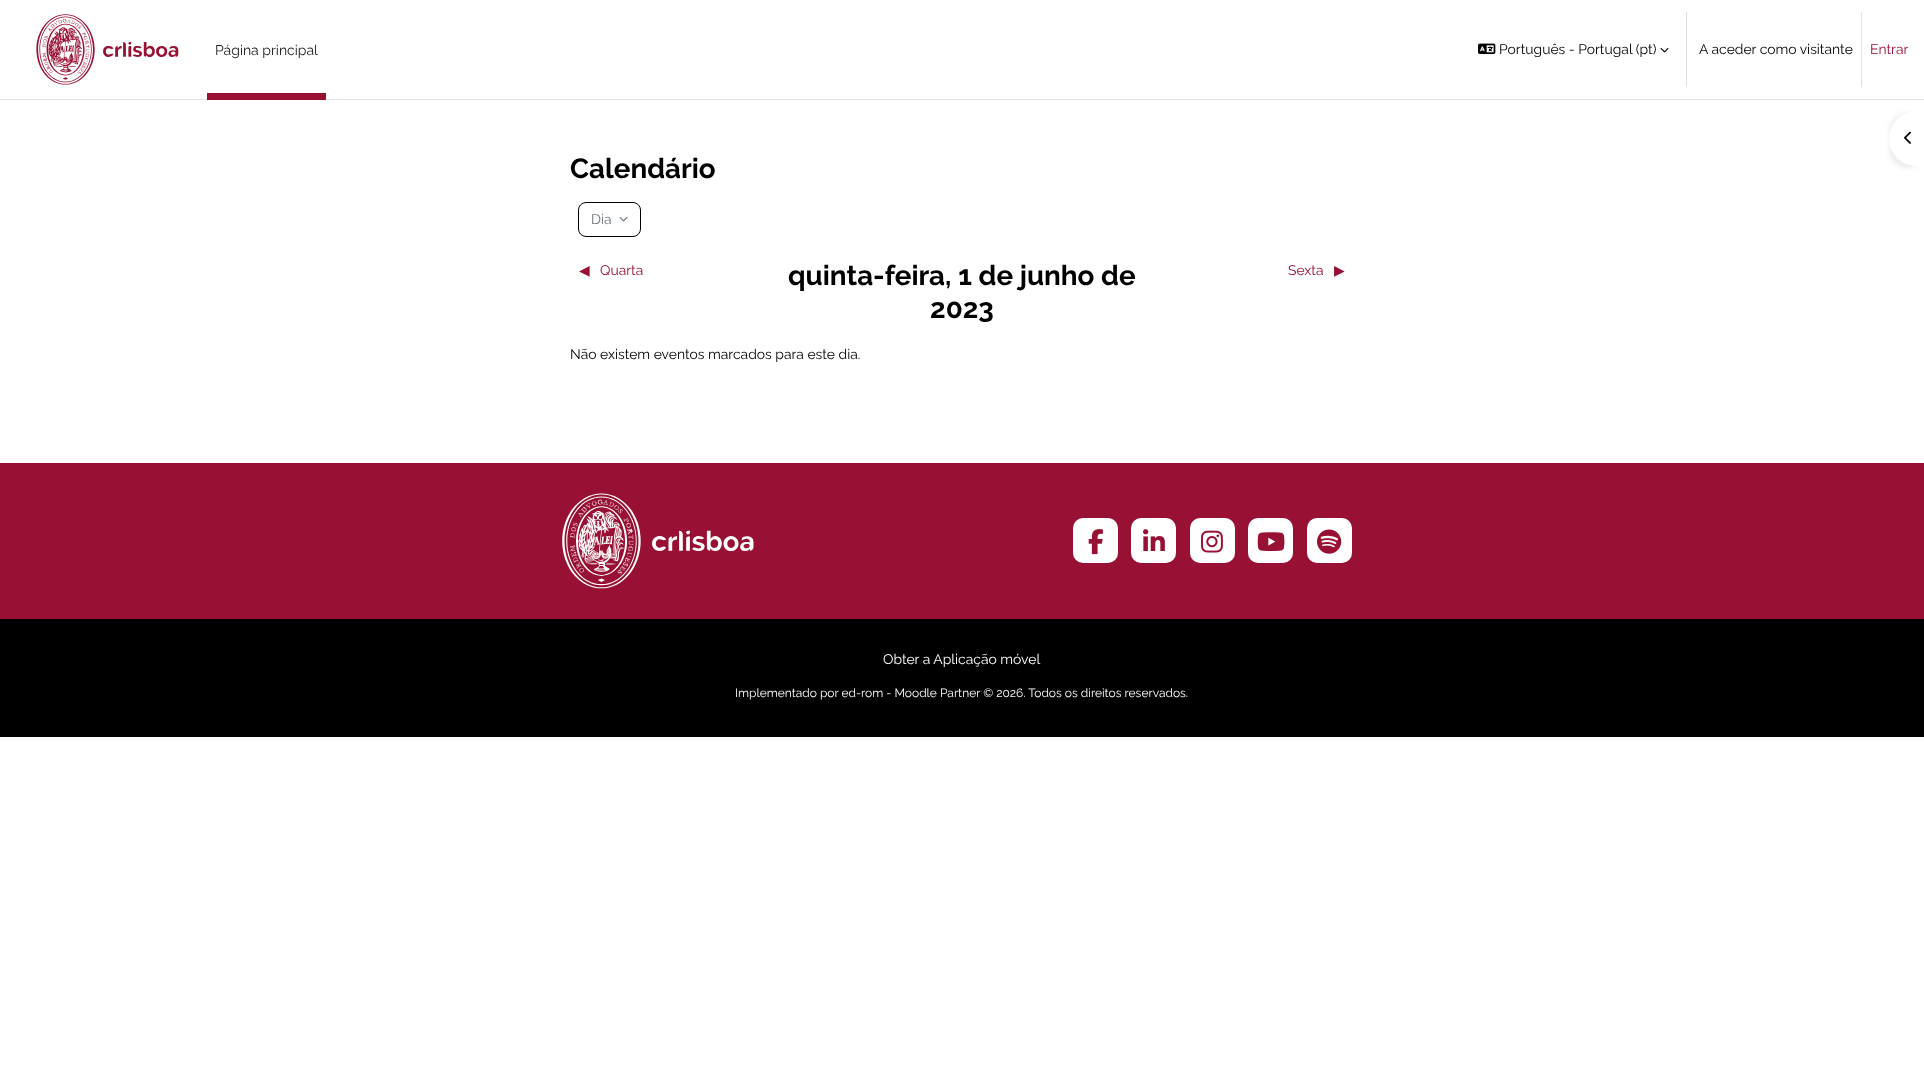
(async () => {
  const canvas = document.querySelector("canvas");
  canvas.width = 1924;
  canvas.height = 1088;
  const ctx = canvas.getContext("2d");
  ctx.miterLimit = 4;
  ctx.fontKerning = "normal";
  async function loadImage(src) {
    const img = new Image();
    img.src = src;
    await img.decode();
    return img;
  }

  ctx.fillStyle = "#ffffff";
  ctx.fillRect(0, 0, 1924, 1088);
  ctx.fillStyle = "#dee2e6";
  ctx.fillRect(0, 99, 1924, 1);
  ctx.drawImage(await loadImage("img/1.png"), 36, 14, 143, 71);
  ctx.fillStyle = "#981033";
  ctx.fillRect(207, 93, 119, 7);
  ctx.drawImage(await loadImage("img/2.png"), 1478, 43, 18, 11);
  ctx.drawImage(await loadImage("img/3.png"), 1660, 48, 9, 5);
  ctx.fillStyle = "#dee2e6";
  ctx.fillRect(1686, 12, 1, 75);
  ctx.fillRect(1861, 12, 1, 75);
  ctx.fillStyle = "rgba(0, 0, 0, 0.07)";
  ctx.filter = "blur(2px)";
  ctx.beginPath();
  ctx.roundRect(1889, 113, 35, 55, 28);
  ctx.fill();
  ctx.filter = "none";
  ctx.fillStyle = "#ffffff";
  ctx.beginPath();
  ctx.roundRect(1889, 111, 35, 55, [27.5, 0, 0, 27.5]);
  ctx.fill();
  ctx.drawImage(await loadImage("img/4.png"), 1904, 131, 7, 13);
  ctx.beginPath();
  ctx.roundRect(578.5, 202.5, 62, 34, 7.5);
  ctx.strokeStyle = "#000000";
  ctx.stroke();
  ctx.drawImage(await loadImage("img/5.png"), 619, 217, 9, 5);
  ctx.fillStyle = "#981033";
  ctx.fillRect(0, 463, 1924, 156);
  ctx.drawImage(await loadImage("img/6.png"), 562, 493, 192, 96);
  ctx.fillStyle = "#ffffff";
  ctx.beginPath();
  ctx.roundRect(1073, 518, 45, 45, 10);
  ctx.fill();
  ctx.drawImage(await loadImage("img/7.png"), 1088, 529, 15, 26);
  ctx.beginPath();
  ctx.roundRect(1131, 518, 45, 45, 10);
  ctx.fill();
  ctx.drawImage(await loadImage("img/8.png"), 1143, 529, 22, 22);
  ctx.beginPath();
  ctx.roundRect(1190, 518, 45, 45, 10);
  ctx.fill();
  ctx.drawImage(await loadImage("img/9.png"), 1201, 530, 22, 23);
  ctx.beginPath();
  ctx.roundRect(1248, 518, 45, 45, 10);
  ctx.fill();
  ctx.drawImage(await loadImage("img/10.png"), 1257, 532, 28, 19);
  ctx.beginPath();
  ctx.roundRect(1307, 518, 45, 45, 10);
  ctx.fill();
  ctx.drawImage(await loadImage("img/11.png"), 1317, 529, 25, 25);
  ctx.fillStyle = "#000000";
  ctx.fillRect(0, 619, 1924, 118);
  ctx.font = "14px Raleway";
  ctx.fillStyle = "#1a1a1a";
  ctx.fillText("Página principal", 215, 55);
  ctx.font = "13.9px Raleway";
  ctx.fillStyle = "#000000";
  ctx.fillText("Português - Portugal (pt)", 1499, 54);
  ctx.fillText("A aceder como visitante", 1699, 54);
  ctx.fillStyle = "#981033";
  ctx.fillText("Entrar", 1870, 54);
  ctx.font = "bold 27.75px Raleway";
  ctx.fillStyle = "#000000";
  ctx.fillText("Calendário", 570, 178);
  ctx.font = "13.9px Raleway";
  ctx.fillStyle = "#6a737b";
  ctx.fillText("Dia", 591, 224);
  ctx.font = "13.9px DejaVu Sans";
  ctx.fillStyle = "#981033";
  ctx.fillText("◀︎", 579, 275);
  ctx.font = "13.9px Raleway";
  ctx.fillText("Quarta", 600, 275);
  ctx.font = "bold 27.75px Raleway";
  ctx.fillStyle = "#000000";
  ctx.fillText("quinta-feira, 1 de junho de", 788, 285);
  ctx.fillText("2023", 930, 318);
  ctx.font = "13.9px Raleway";
  ctx.fillStyle = "#981033";
  ctx.fillText("Sexta", 1288, 275);
  ctx.font = "13.9px DejaVu Sans";
  ctx.fillText("▶︎", 1334, 275);
  ctx.font = "13.9px Raleway";
  ctx.fillStyle = "#000000";
  ctx.fillText("Não existem eventos marcados para este dia.", 570, 359);
  ctx.fillStyle = "#ffffff";
  ctx.fillText("Obter a Aplicação móvel", 883, 664);
  ctx.font = "12px Raleway";
  ctx.fillText("Implementado por ed-rom - Moodle Partner © 2026. Todos os direitos reservados.", 735, 697);
})();
